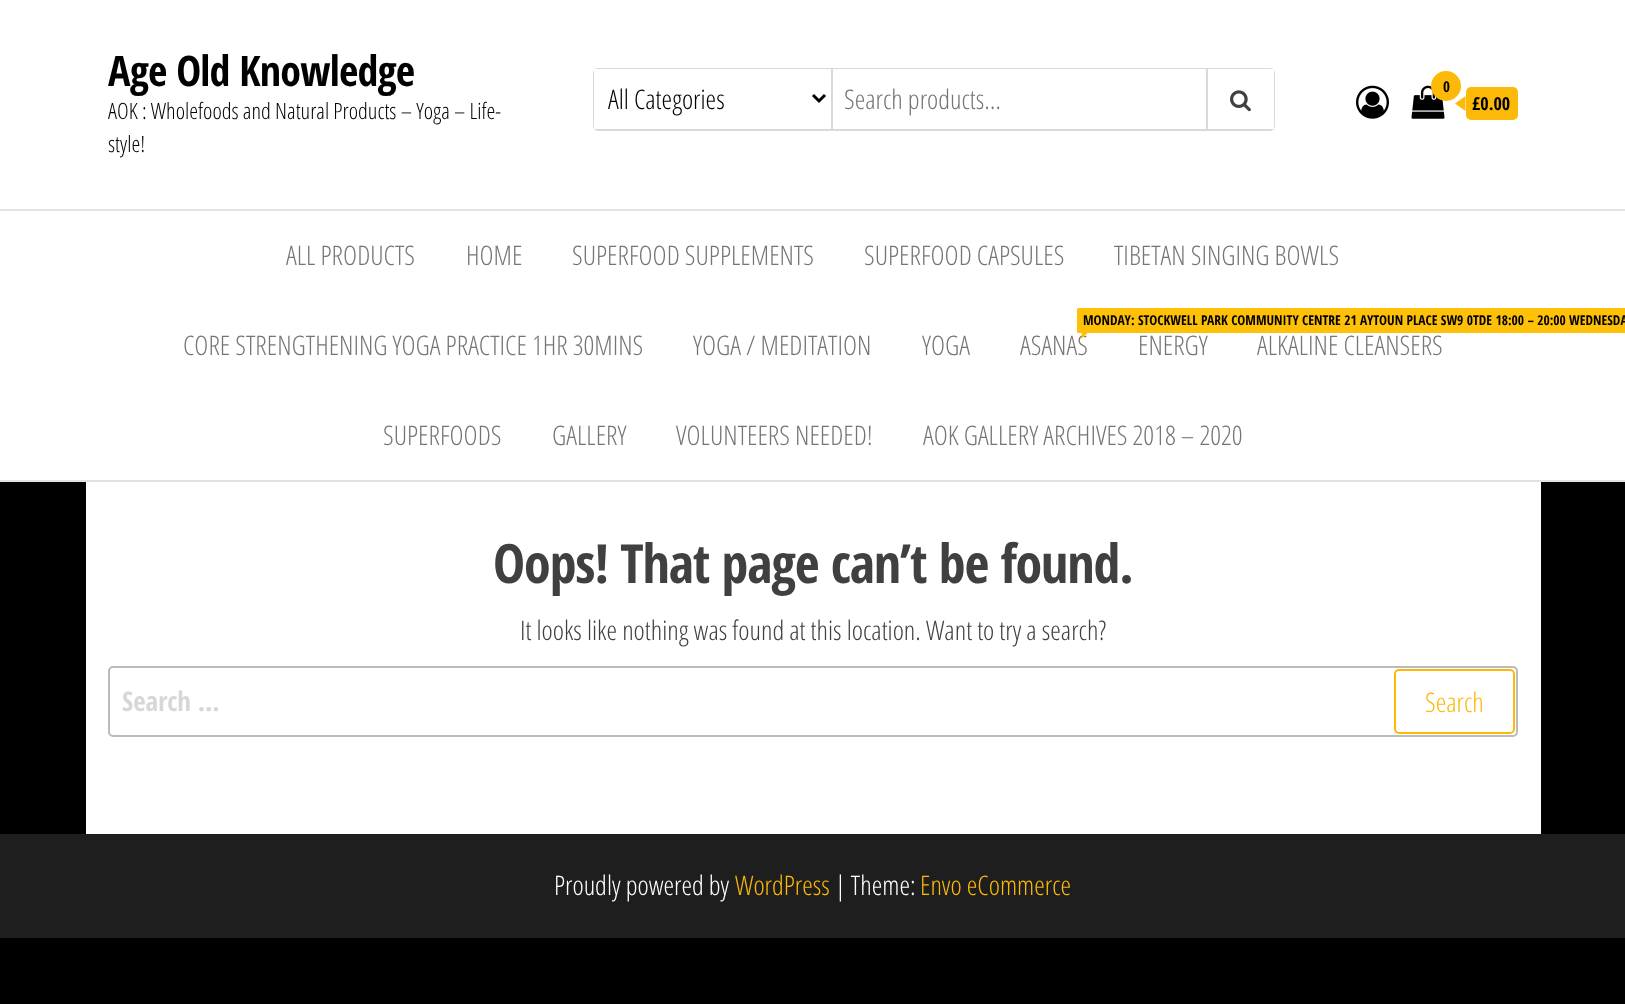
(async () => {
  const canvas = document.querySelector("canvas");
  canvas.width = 1625;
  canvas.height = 1004;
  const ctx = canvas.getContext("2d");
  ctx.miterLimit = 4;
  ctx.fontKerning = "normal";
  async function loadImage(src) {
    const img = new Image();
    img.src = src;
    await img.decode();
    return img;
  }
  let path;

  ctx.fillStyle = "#000000";
  ctx.fillRect(0, 0, 1625, 1004);
  ctx.fillStyle = "#ffffff";
  ctx.fillRect(0, 0, 1625, 209);
  ctx.beginPath();
  ctx.roundRect(594, 69, 680, 61, 4);
  ctx.strokeStyle = "#d9d9d9";
  ctx.lineWidth = 2;
  ctx.stroke();
  ctx.fillRect(594, 69, 237, 60);
  ctx.fillStyle = "#d9d9d9";
  ctx.fillRect(831, 69, 2, 60);
  path = new Path2D("M813 95L819 101L825 95");
  ctx.strokeStyle = "#000000";
  ctx.lineWidth = 3;
  ctx.stroke(path);
  ctx.fillStyle = "#ffffff";
  ctx.fillRect(833, 69, 441, 60);
  ctx.fillStyle = "#d9d9d9";
  ctx.fillRect(1206, 69, 2, 60);
  ctx.drawImage(await loadImage("img/1.png"), 1230, 90, 21, 22);
  ctx.drawImage(await loadImage("img/2.png"), 1356, 85, 33, 34);
  ctx.drawImage(await loadImage("img/3.png"), 1411, 85, 34, 34);
  ctx.fillStyle = "#fdb907";
  ctx.beginPath();
  ctx.arc(1446, 86, 15, 0, Math.PI * 2);
  ctx.fill();
  ctx.beginPath();
  ctx.roundRect(1466, 87, 52, 33, 5);
  ctx.fill();
  path = new Path2D("M1465.5 96V111L1455 103.5Z");
  ctx.fill(path);
  for (const [x, y, w, h, color] of [
    [0, 211, 1625, 269, "#ffffff"],
    [0, 209, 1625, 2, "#e2e2e2"],
    [0, 480, 1625, 2, "#e2e2e2"],
  ]) {
    ctx.fillStyle = color;
    ctx.fillRect(x, y, w, h);
  }
  ctx.fillStyle = "#ffc107";
  ctx.beginPath();
  ctx.roundRect(1077, 308, 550, 25, 1.5);
  ctx.fill();
  ctx.fillStyle = "#ffffff";
  ctx.fillRect(86, 482, 1455, 352);
  ctx.beginPath();
  ctx.roundRect(109, 667, 1408, 69, 4);
  ctx.strokeStyle = "#bbbbbb";
  ctx.lineWidth = 2;
  ctx.stroke();
  ctx.beginPath();
  ctx.roundRect(1395, 670, 119, 63, 4);
  ctx.strokeStyle = "#fdb907";
  ctx.stroke();
  ctx.fillStyle = "#1e1e1e";
  ctx.fillRect(0, 834, 1625, 104);
  ctx.letterSpacing = "-0.8px";
  ctx.font = "bold 42px Open Sans Condensed";
  ctx.fillStyle = "#000000";
  ctx.fillText("Age Old Knowledge", 108, 86);
  ctx.letterSpacing = "0px";
  ctx.font = "300 22.5px Open Sans Condensed";
  ctx.fillText("AOK : Wholefoods and Natural Products – Yoga – Life-", 108, 119);
  ctx.fillText("style!", 108, 152);
  ctx.font = "300 27px Open Sans Condensed";
  ctx.fillText("All Categories", 608, 109);
  ctx.fillStyle = "#757575";
  ctx.fillText("Search products…", 844, 109);
  ctx.font = "bold 15px Open Sans Condensed";
  ctx.fillStyle = "#000000";
  ctx.fillText("0", 1443, 92);
  ctx.font = "bold 18px Open Sans Condensed";
  ctx.fillText("£0.00", 1472, 110);
  ctx.font = "300 27px Open Sans Condensed";
  ctx.fillStyle = "#757575";
  for (const [text, x, y] of [
    ["ALL PRODUCTS", 286, 265],
    ["HOME", 466, 265],
    ["SUPERFOOD SUPPLEMENTS", 572, 265],
    ["SUPERFOOD CAPSULES", 864, 265],
    ["TIBETAN SINGING BOWLS", 1114, 265],
    ["CORE STRENGTHENING YOGA PRACTICE 1HR 30MINS", 183, 355],
    ["YOGA / MEDITATION", 693, 355],
    ["YOGA", 922, 355],
  ]) {
    ctx.fillText(text, x, y);
  }
  ctx.font = "bold 13.5px Open Sans Condensed";
  ctx.fillStyle = "#000000";
  ctx.fillText("MONDAY: STOCKWELL PARK COMMUNITY CENTRE 21 AYTOUN PLACE SW9 0TDE 18:00 – 20:00 WEDNESDA", 1083, 325);
  ctx.font = "300 27px Open Sans Condensed";
  ctx.fillStyle = "#757575";
  ctx.fillText("ASANAS", 1020, 355);
  ctx.fillStyle = "#ffc107";
  path = new Path2D("M1081.5 331.5H1089L1081.5 339Z");
  ctx.fill(path);
  ctx.fillStyle = "#757575";
  for (const [text, x, y] of [
    ["ENERGY", 1138, 355],
    ["ALKALINE CLEANSERS", 1257, 355],
    ["SUPERFOODS", 383, 445],
    ["GALLERY", 552, 445],
    ["VOLUNTEERS NEEDED!", 676, 445],
    ["AOK GALLERY ARCHIVES 2018 – 2020", 923, 445],
  ]) {
    ctx.fillText(text, x, y);
  }
  ctx.letterSpacing = "-1.1px";
  ctx.font = "bold 54px Open Sans Condensed";
  ctx.fillStyle = "#404040";
  ctx.fillText("Oops! That page can’t be found.", 493, 583);
  ctx.letterSpacing = "0px";
  ctx.font = "300 27px Open Sans Condensed";
  ctx.fillText("It looks like nothing was found at this location. Want to try a search?", 520, 640);
  ctx.font = "bold 27px Open Sans Condensed";
  ctx.fillStyle = "#d7d7d7";
  ctx.fillText("Search …", 122, 711);
  ctx.font = "300 27px Open Sans Condensed";
  ctx.fillStyle = "#fdb907";
  ctx.fillText("Search", 1425, 712);
  ctx.fillStyle = "#ffffff";
  ctx.fillText("Proudly powered by", 554, 895);
  ctx.fillStyle = "#fdb907";
  ctx.fillText("WordPress", 735, 895);
  ctx.fillStyle = "#ffffff";
  ctx.fillText("| Theme:", 835, 895);
  ctx.fillStyle = "#fdb907";
  ctx.fillText("Envo eCommerce", 920, 895);
})();
